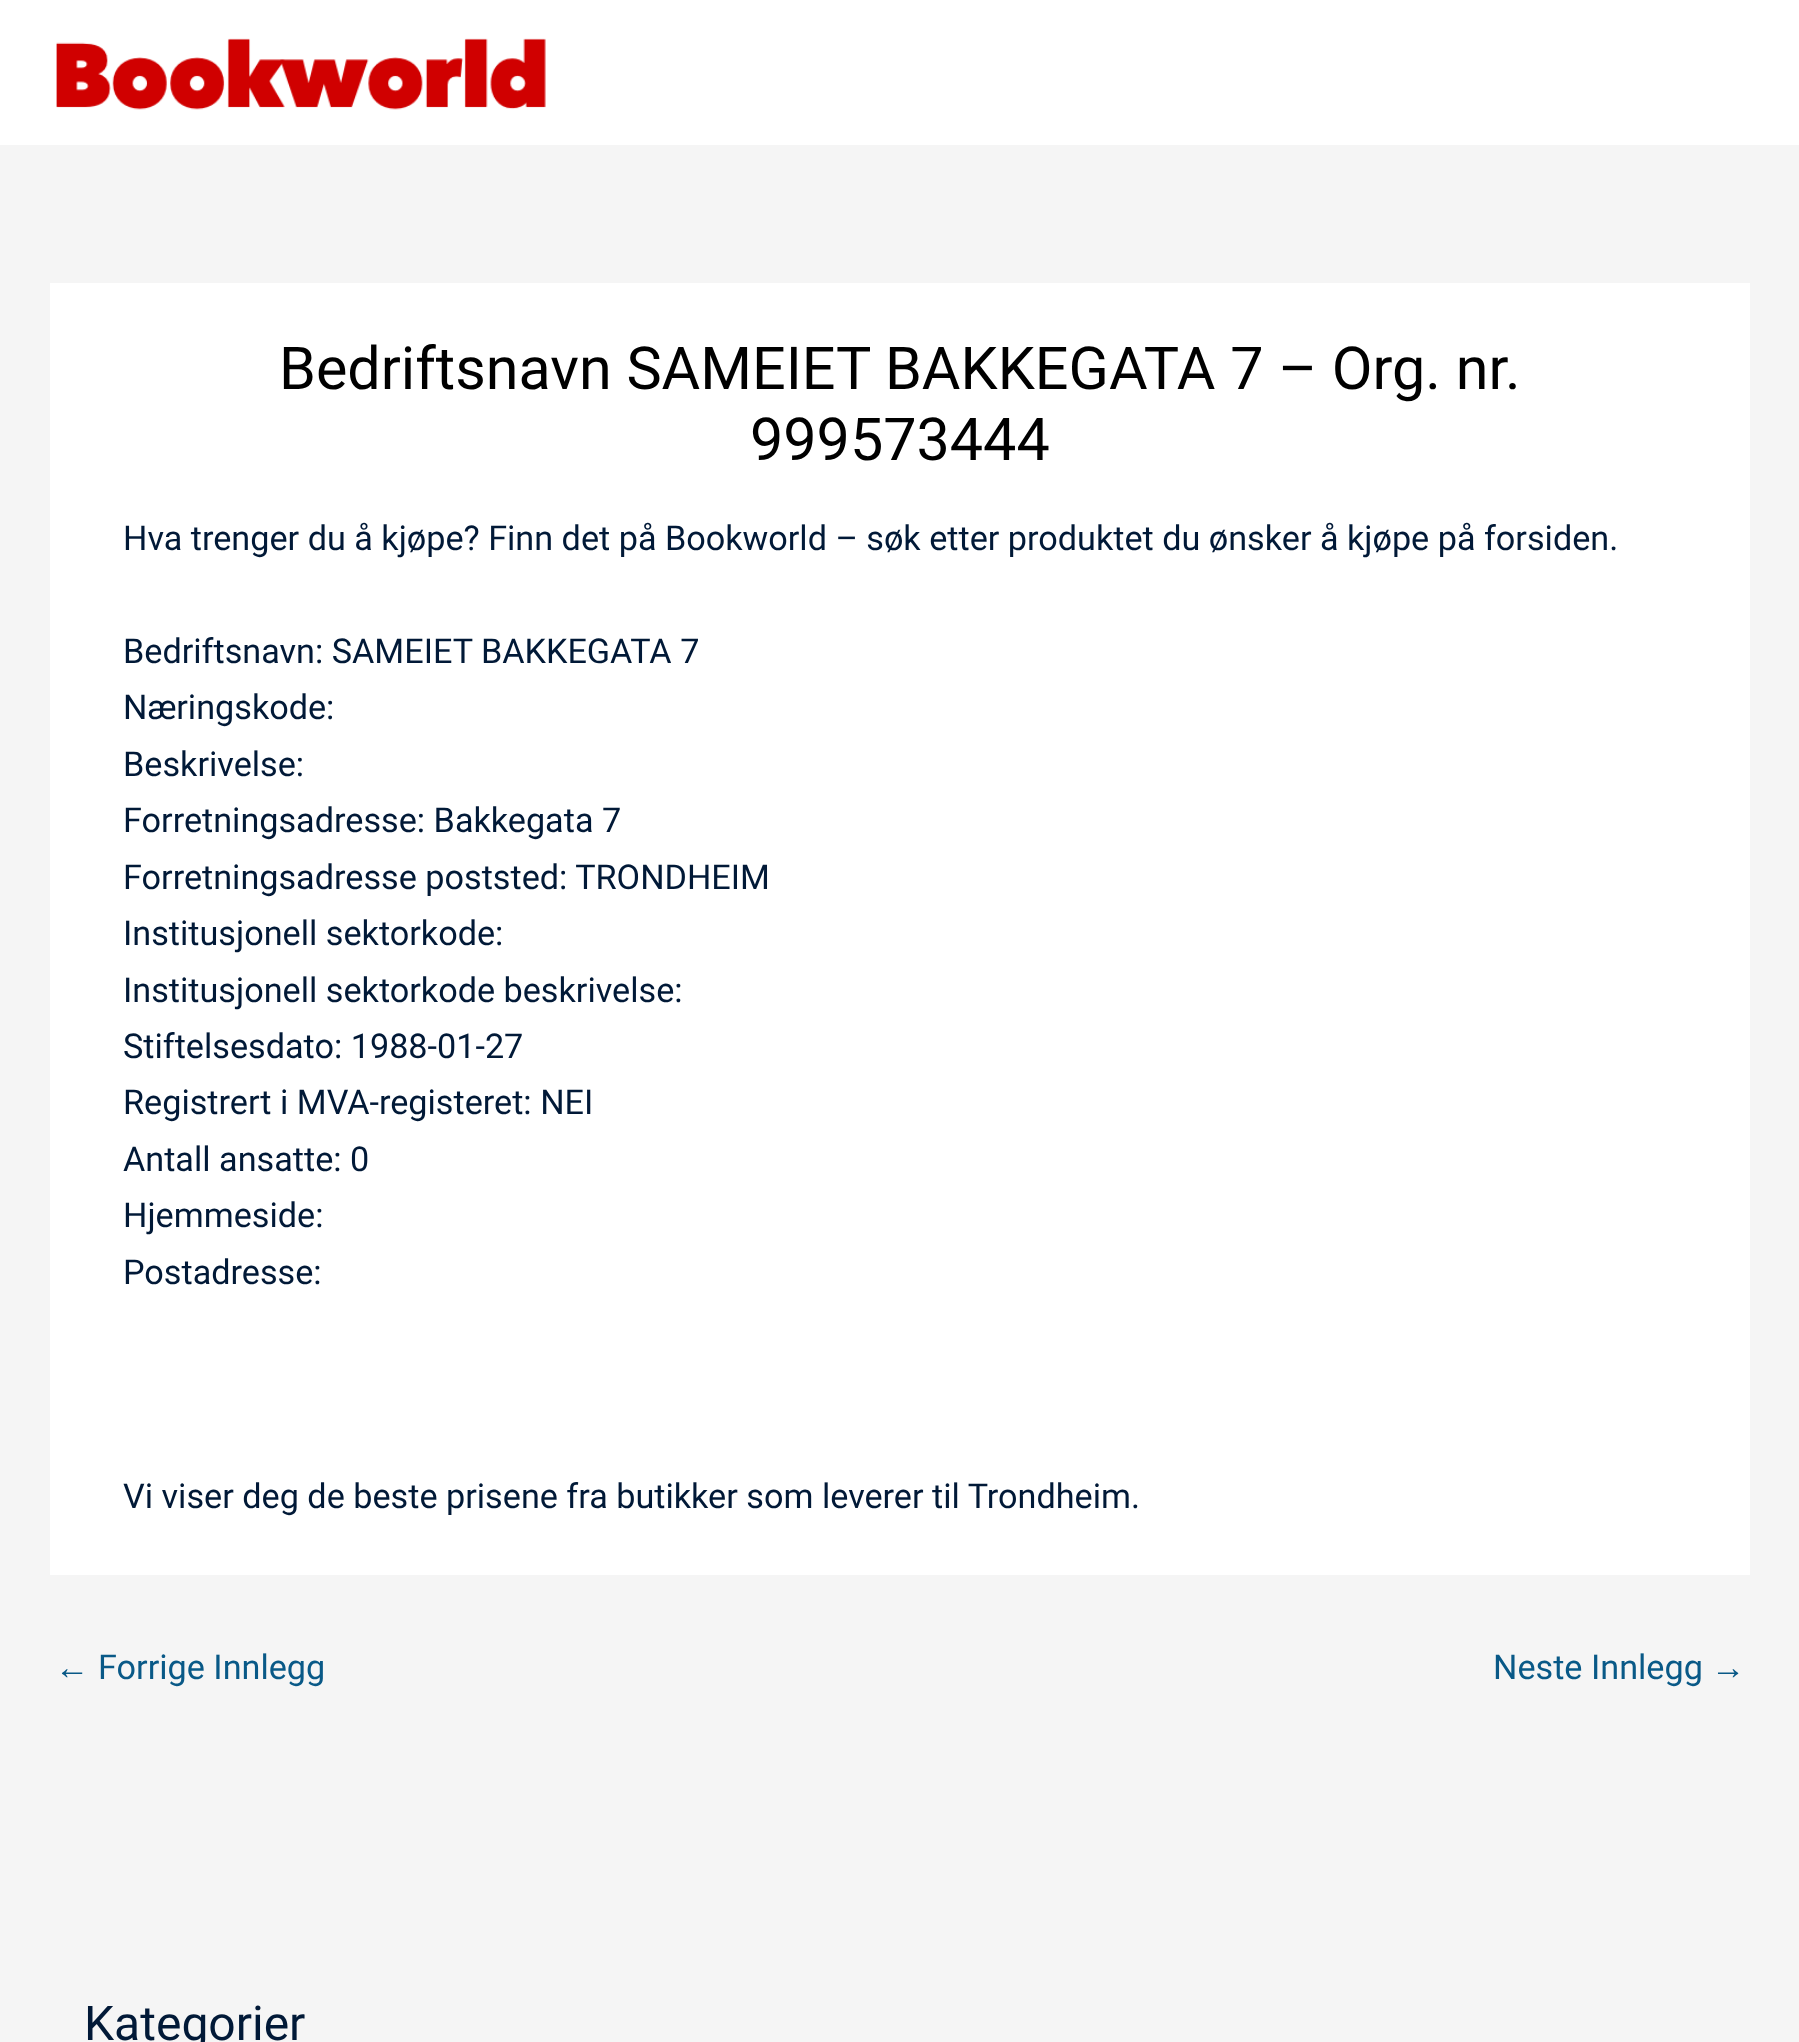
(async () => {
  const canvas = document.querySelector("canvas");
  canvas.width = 1799;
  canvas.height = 2042;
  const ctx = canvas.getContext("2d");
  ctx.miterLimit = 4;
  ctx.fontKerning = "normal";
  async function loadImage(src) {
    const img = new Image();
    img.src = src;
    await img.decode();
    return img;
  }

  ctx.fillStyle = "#f5f5f5";
  ctx.fillRect(0, 0, 1799, 2042);
  ctx.fillStyle = "#ffffff";
  ctx.fillRect(0, 0, 1799, 145);
  ctx.drawImage(await loadImage("img/1.png"), 56, 38, 490, 72);
  ctx.fillRect(50, 283, 1700, 1292);
  ctx.font = "59.25px Roboto";
  ctx.fillStyle = "#000000";
  ctx.fillText("Bedriftsnavn SAMEIET BAKKEGATA 7 – Org. nr.", 279, 389);
  ctx.fillText("999573444", 750, 460);
  ctx.font = "34.2px Roboto";
  ctx.fillStyle = "#011937";
  for (const [text, x, y] of [
    ["Hva trenger du å kjøpe? Finn det på Bookworld – søk etter produktet du ønsker å kjøpe på forsiden.", 123, 550],
    ["Bedriftsnavn: SAMEIET BAKKEGATA 7", 123, 663],
    ["Næringskode:", 123, 719],
    ["Beskrivelse:", 123, 776],
    ["Forretningsadresse: Bakkegata 7", 123, 832],
    ["Forretningsadresse poststed: TRONDHEIM", 123, 889],
    ["Institusjonell sektorkode:", 123, 945],
    ["Institusjonell sektorkode beskrivelse:", 123, 1002],
    ["Stiftelsesdato: 1988-01-27", 123, 1058],
    ["Registrert i MVA-registeret: NEI", 123, 1114],
    ["Antall ansatte: 0", 123, 1171],
    ["Hjemmeside:", 123, 1227],
    ["Postadresse:", 123, 1284],
    ["Vi viser deg de beste prisene fra butikker som leverer til Trondheim.", 123, 1508],
  ]) {
    ctx.fillText(text, x, y);
  }
  ctx.font = "34.2px Liberation Sans";
  ctx.fillStyle = "#095987";
  ctx.fillText("←", 55, 1679);
  ctx.font = "34.2px Roboto";
  ctx.fillText("Forrige Innlegg", 98, 1679);
  ctx.fillText("Neste Innlegg", 1493, 1679);
  ctx.font = "34.2px Liberation Sans";
  ctx.fillText("→", 1711, 1679);
  ctx.font = "48px Roboto";
  ctx.fillStyle = "#011937";
  ctx.fillText("Kategorier", 84, 2040);
})();
